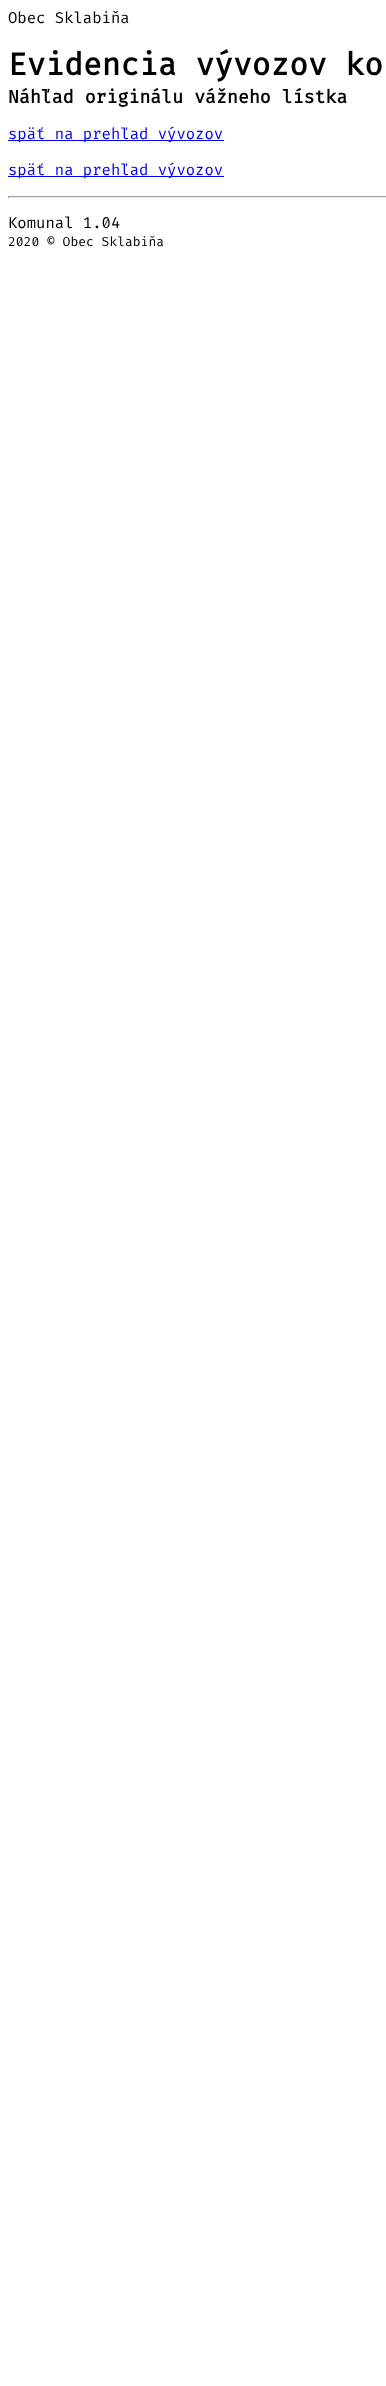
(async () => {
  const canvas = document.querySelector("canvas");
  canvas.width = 386;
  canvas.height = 2386;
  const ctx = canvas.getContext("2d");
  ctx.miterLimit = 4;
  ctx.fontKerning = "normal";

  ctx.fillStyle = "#ffffff";
  ctx.fillRect(0, 0, 386, 2386);
  for (const [x, y, w, h, color] of [
    [8, 140, 216, 1, "#0000ee"],
    [8, 176, 216, 1, "#0000ee"],
    [8, 196, 378, 1, "#9f9f9f"],
    [8, 197, 378, 1, "#eeeeee"],
    [8, 196, 1, 2, "#9f9f9f"],
  ]) {
    ctx.fillStyle = color;
    ctx.fillRect(x, y, w, h);
  }
  ctx.font = "300 15.6px Fira Code";
  ctx.fillStyle = "#000000";
  ctx.fillText("Obec Sklabiňa", 8, 23);
  ctx.font = "bold 31.25px Fira Code";
  ctx.fillText("Evidencia vývozov ko", 8, 75);
  ctx.font = "bold 18.25px Fira Code";
  ctx.fillText("Náhľad originálu vážneho lístka", 8, 103);
  ctx.font = "300 15.6px Fira Code";
  ctx.fillStyle = "#0000ee";
  ctx.fillText("späť na prehľad vývozov", 8, 139);
  ctx.fillText("späť na prehľad vývozov", 8, 175);
  ctx.fillStyle = "#000000";
  ctx.fillText("Komunal 1.04", 8, 228);
  ctx.font = "300 13px Fira Code";
  ctx.fillText("2020 © Obec Sklabiňa", 8, 246);
})();
